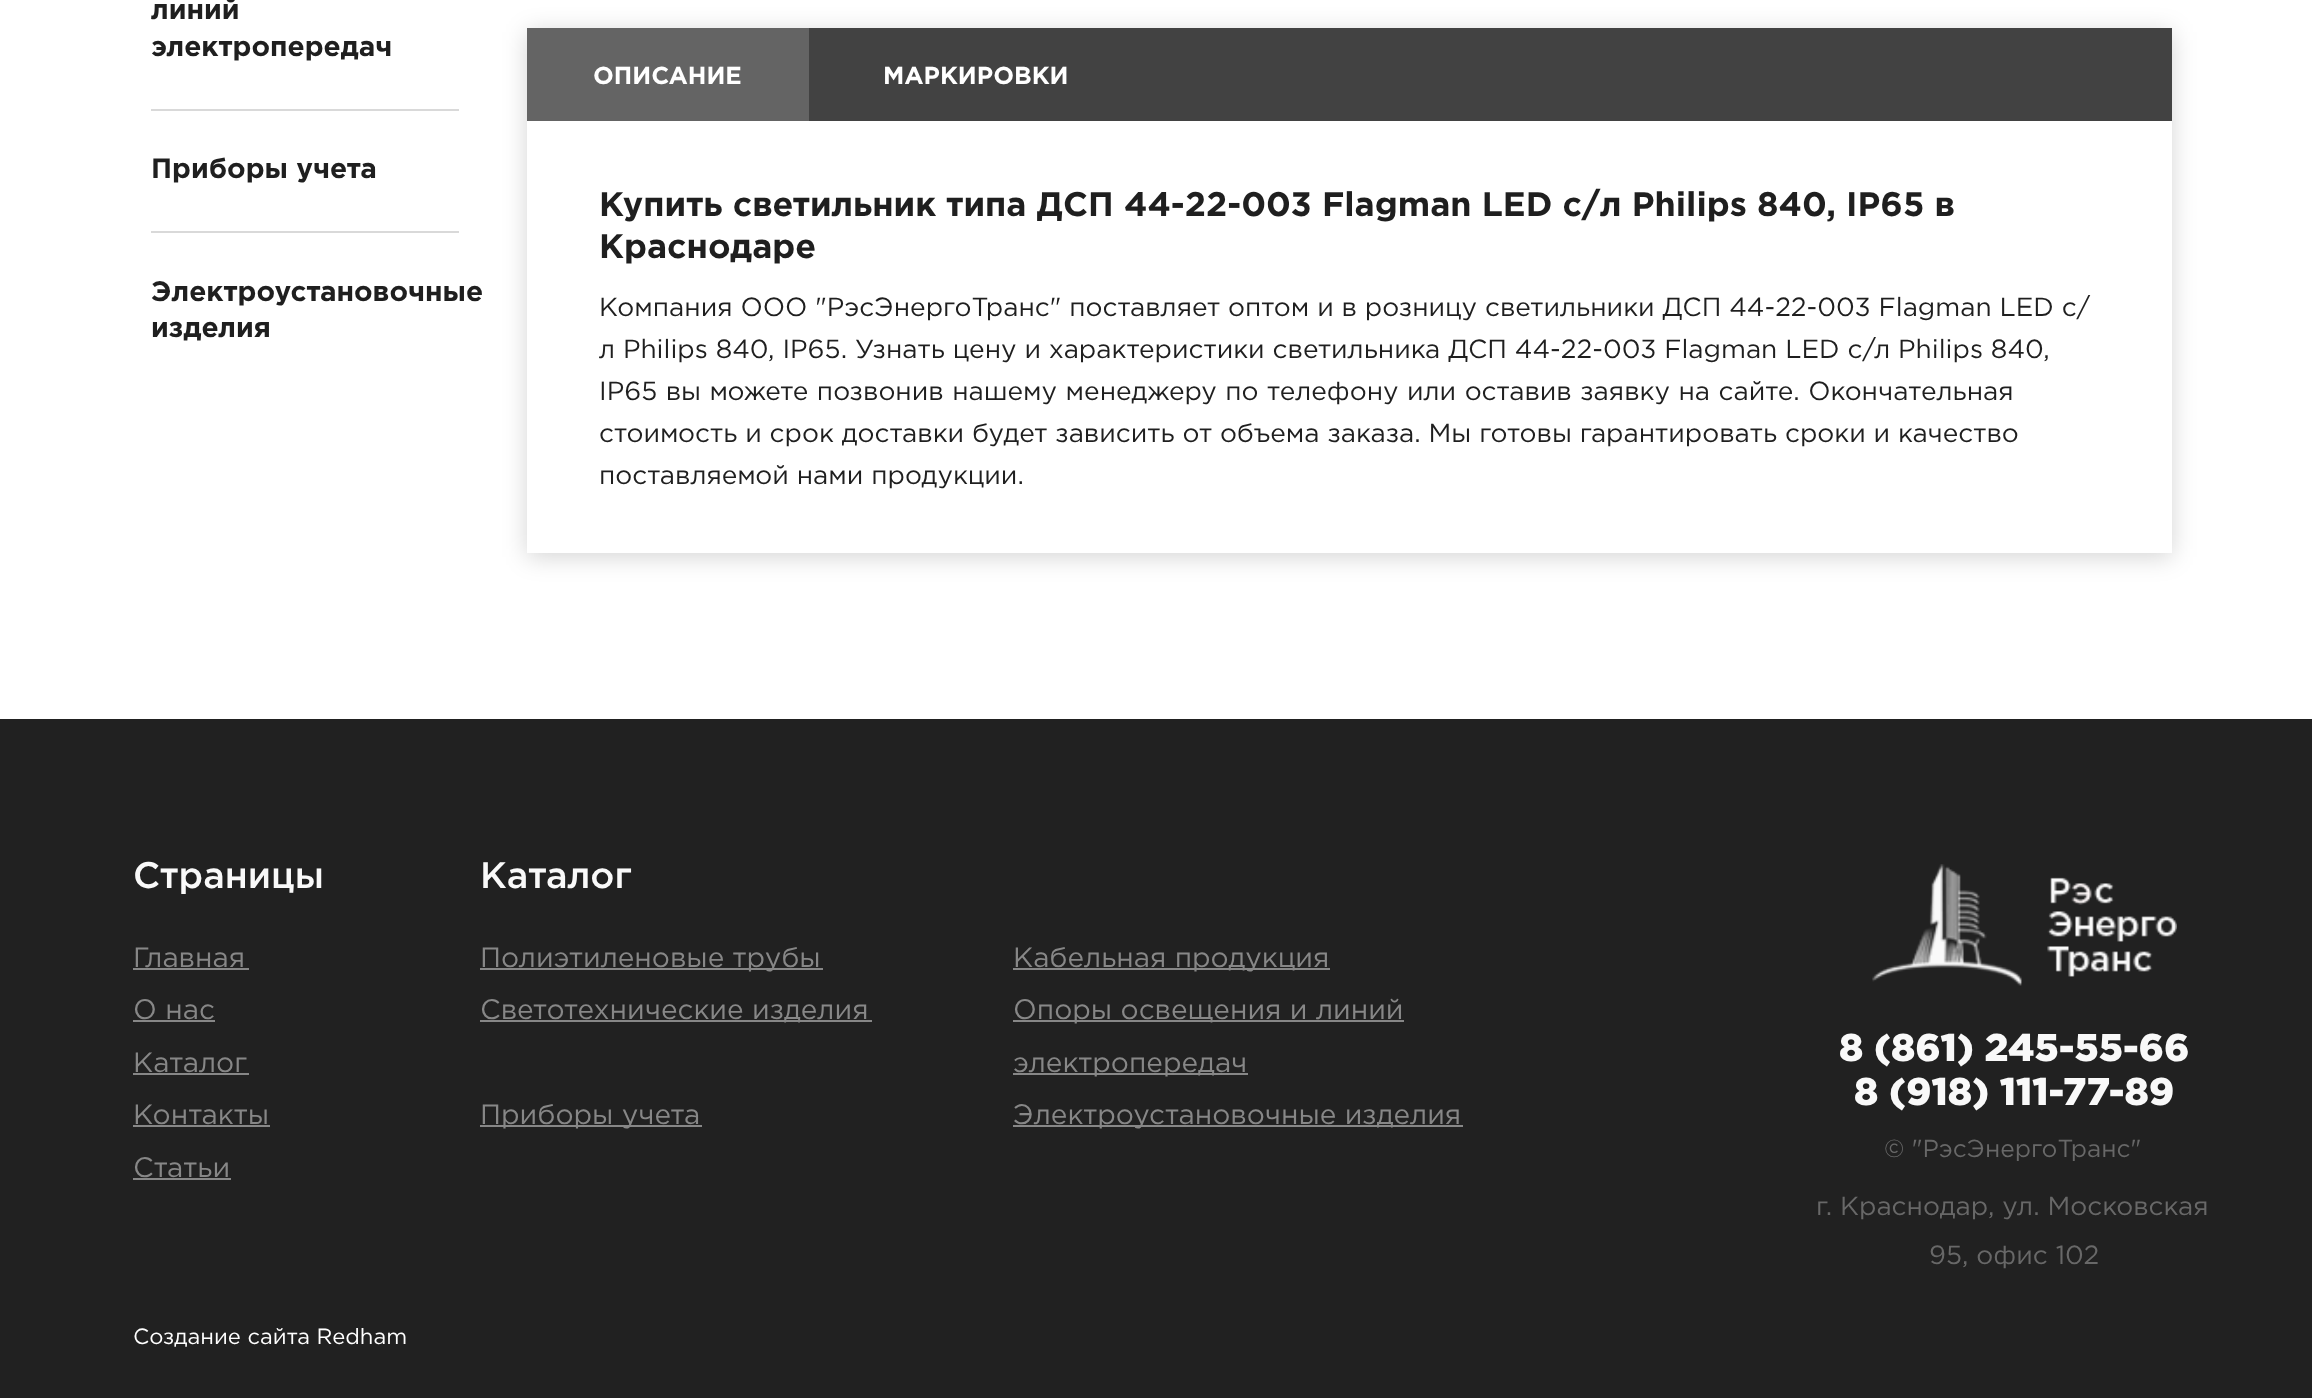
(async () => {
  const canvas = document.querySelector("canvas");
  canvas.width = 2312;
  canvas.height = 1398;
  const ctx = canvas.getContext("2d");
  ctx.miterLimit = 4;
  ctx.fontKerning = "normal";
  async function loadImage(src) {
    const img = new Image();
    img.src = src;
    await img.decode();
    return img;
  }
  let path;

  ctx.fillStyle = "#ffffff";
  ctx.fillRect(0, 0, 2312, 1398);
  ctx.fillStyle = "#d9d9d9";
  ctx.fillRect(151, 109, 308, 2);
  ctx.fillRect(151, 231, 308, 2);
  ctx.save();
  path = new Path2D("M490 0H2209V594H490ZM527 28H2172V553H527Z");
  ctx.clip(path, "evenodd");
  ctx.fillStyle = "rgba(0, 0, 0, 0.17)";
  ctx.filter = "blur(12px)";
  ctx.beginPath();
  ctx.rect(527, 32, 1645, 525);
  ctx.fill();
  ctx.filter = "none";
  ctx.restore();
  for (const [x, y, w, h, color] of [
    [809, 28, 1363, 93, "#424242"],
    [527, 28, 282, 93, "#646464"],
    [0, 719, 2312, 679, "#212121"],
    [133, 968, 116, 2, "#878787"],
    [133, 1020, 82, 2, "#878787"],
    [133, 1073, 116, 2, "#878787"],
    [133, 1125, 137, 2, "#878787"],
    [133, 1178, 98, 2, "#878787"],
    [480, 968, 343, 2, "#878787"],
    [1013, 968, 317, 2, "#878787"],
    [480, 1020, 392, 2, "#878787"],
    [1013, 1020, 391, 2, "#878787"],
    [1013, 1073, 235, 2, "#878787"],
    [480, 1125, 222, 2, "#878787"],
    [1013, 1125, 450, 2, "#878787"],
  ]) {
    ctx.fillStyle = color;
    ctx.fillRect(x, y, w, h);
  }
  ctx.drawImage(await loadImage("img/1.png"), 1872, 864, 305, 122);
  ctx.font = "bold 28px Gotham";
  ctx.fillStyle = "#1f1f1f";
  for (const [text, x, y] of [
    ["линий", 151, 19],
    ["электропередач", 151, 56],
    ["Приборы учета", 151, 178],
    ["Электроустановочные", 151, 301],
    ["изделия", 151, 337],
  ]) {
    ctx.fillText(text, x, y);
  }
  ctx.font = "bold 24.5px Gotham";
  ctx.fillStyle = "#ffffff";
  ctx.fillText("ОПИСАНИЕ", 593, 84);
  ctx.fillText("МАРКИРОВКИ", 883, 84);
  ctx.font = "bold 34.1px Gotham";
  ctx.fillStyle = "#1f1f1f";
  ctx.fillText("Купить светильник типа ДСП 44-22-003 Flagman LED с/л Philips 840, IP65 в", 599, 216);
  ctx.fillText("Краснодаре", 599, 258);
  ctx.font = "26.25px Gotham";
  ctx.fillText("Компания ООО \"РэсЭнергоТранс\" поставляет оптом и в розницу светильники ДСП 44-22-003 Flagman LED с/", 599, 316);
  ctx.fillText("л Philips 840, IP65. Узнать цену и характеристики светильника ДСП 44-22-003 Flagman LED с/л Philips 840,", 599, 358);
  ctx.wordSpacing = "0.6px";
  ctx.fillText("IP65 вы можете позвонив нашему менеджеру по телефону или оставив заявку на сайте. Окончательная", 599, 400);
  ctx.wordSpacing = "0px";
  ctx.fillText("стоимость и срок доставки будет зависить от объема заказа. Мы готовы гарантировать сроки и качество", 599, 442);
  ctx.fillText("поставляемой нами продукции.", 599, 484);
  ctx.font = "500 36.75px Gotham";
  ctx.fillStyle = "#f9f9f9";
  ctx.fillText("Страницы", 133, 888);
  ctx.font = "28px Gotham";
  ctx.fillStyle = "#878787";
  for (const [text, x, y] of [
    ["Главная", 133, 967],
    ["О нас", 133, 1019],
    ["Каталог", 133, 1072],
    ["Контакты", 133, 1124],
    ["Статьи", 133, 1177],
  ]) {
    ctx.fillText(text, x, y);
  }
  ctx.font = "500 36.75px Gotham";
  ctx.fillStyle = "#f9f9f9";
  ctx.fillText("Каталог", 480, 888);
  ctx.font = "28px Gotham";
  ctx.fillStyle = "#878787";
  for (const [text, x, y] of [
    ["Полиэтиленовые трубы", 480, 967],
    ["Кабельная продукция", 1013, 967],
    ["Светотехнические изделия", 480, 1019],
    ["Опоры освещения и линий", 1013, 1019],
    ["электропередач", 1013, 1072],
    ["Приборы учета", 480, 1124],
    ["Электроустановочные изделия", 1013, 1124],
  ]) {
    ctx.fillText(text, x, y);
  }
  ctx.font = "900 38.5px Gotham";
  ctx.fillStyle = "#f9f9f9";
  ctx.fillText("8 (861) 245-55-66", 1839, 1061);
  ctx.fillText("8 (918) 111-77-89", 1854, 1105);
  ctx.font = "24.5px Gotham";
  ctx.fillStyle = "#686868";
  ctx.fillText("© \"РэсЭнергоТранс\"", 1884, 1157);
  ctx.font = "26.25px Gotham";
  ctx.fillText("г. Краснодар, ул. Московская", 1816, 1215);
  ctx.fillText("95, офис 102", 1929, 1264);
  ctx.font = "22px Gotham";
  ctx.fillStyle = "#ffffff";
  ctx.fillText("Создание сайта Redham", 133, 1344);
})();
